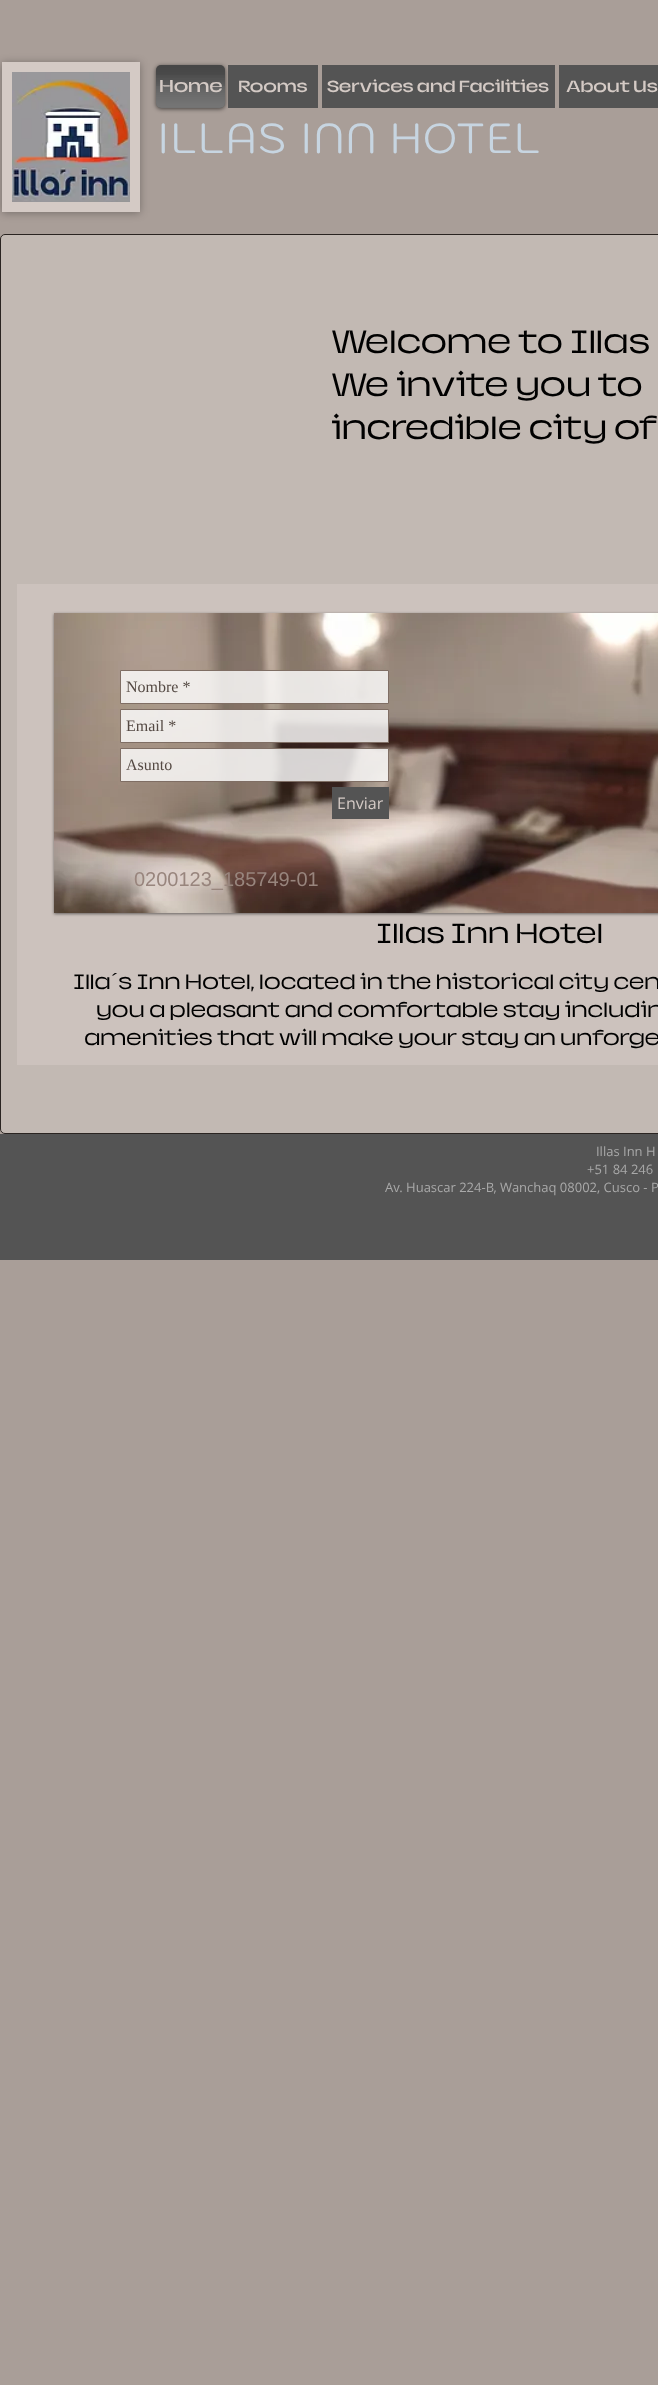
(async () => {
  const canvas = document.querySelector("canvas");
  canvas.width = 658;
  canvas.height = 2385;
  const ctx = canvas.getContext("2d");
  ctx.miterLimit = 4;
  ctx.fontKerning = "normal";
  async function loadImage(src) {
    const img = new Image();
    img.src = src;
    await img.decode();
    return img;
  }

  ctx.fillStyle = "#a99e98";
  ctx.fillRect(0, 0, 658, 2385);
  ctx.fillStyle = "rgba(0, 0, 0, 0.6)";
  ctx.filter = "blur(2px)";
  ctx.beginPath();
  ctx.roundRect(156, 66, 69, 43, 5);
  ctx.fill();
  ctx.filter = "none";
  ctx.fillStyle = "#545454";
  ctx.beginPath();
  ctx.roundRect(156, 65, 69, 43, 5);
  ctx.fill();
  ctx.drawImage(await loadImage("img/1.png"), 156, 65, 69, 21);
  ctx.drawImage(await loadImage("img/2.png"), 156, 75, 69, 33);
  for (const [x, y, w, h, color] of [
    [228, 65, 90, 43, "#545454"],
    [322, 65, 233, 43, "#545454"],
    [559, 65, 99, 43, "#545454"],
  ]) {
    ctx.fillStyle = color;
    ctx.fillRect(x, y, w, h);
  }
  ctx.fillStyle = "#c2b9b3";
  ctx.beginPath();
  ctx.roundRect(0.5, 234.5, 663, 899, 4.5);
  ctx.fill();
  ctx.strokeStyle = "#2a2421";
  ctx.stroke();
  ctx.fillStyle = "#ccc2bd";
  ctx.fillRect(17, 584, 641, 481);
  ctx.fillStyle = "rgba(0, 0, 0, 0.5)";
  ctx.filter = "blur(1.5px)";
  ctx.beginPath();
  ctx.rect(54, 614, 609, 300);
  ctx.fill();
  ctx.filter = "none";
  ctx.drawImage(await loadImage("img/3.png"), 54, 613, 604, 300);
  ctx.fillStyle = "rgba(255, 255, 255, 0.81)";
  ctx.beginPath();
  ctx.rect(120.5, 670.5, 268, 33);
  ctx.fill();
  ctx.strokeStyle = "#7f6e64";
  ctx.stroke();
  ctx.beginPath();
  ctx.rect(120.5, 709.5, 268, 33);
  ctx.fill();
  ctx.stroke();
  ctx.beginPath();
  ctx.rect(120.5, 748.5, 268, 33);
  ctx.fill();
  ctx.stroke();
  ctx.fillStyle = "#545454";
  ctx.fillRect(332, 787, 57, 32);
  ctx.fillStyle = "rgba(0, 0, 0, 0.3)";
  ctx.filter = "blur(4px)";
  ctx.beginPath();
  ctx.rect(2, 63, 138, 150);
  ctx.fill();
  ctx.filter = "none";
  ctx.fillStyle = "#d4cac5";
  ctx.fillRect(2, 62, 138, 150);
  ctx.drawImage(await loadImage("img/4.png"), 12, 72, 118, 130);
  ctx.fillStyle = "#545454";
  ctx.fillRect(0, 1134, 658, 126);
  ctx.font = "bold 15px 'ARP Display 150'";
  ctx.fillStyle = "#d4cac5";
  ctx.fillText("Home", 159, 92);
  ctx.font = "bold 14px 'ARP Display 150'";
  for (const [text, x, y] of [
    ["Rooms", 238, 92],
    ["Services and Facilities", 327, 92],
    ["About Us", 566, 92],
  ]) {
    ctx.fillText(text, x, y);
  }
  ctx.font = "28px 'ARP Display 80'";
  ctx.fillStyle = "#000000";
  for (const [text, x, y] of [
    ["Welcome to Illas", 331, 353],
    ["We invite you to", 331, 396],
    ["incredible city of", 331, 439],
  ]) {
    ctx.fillText(text, x, y);
  }
  ctx.font = "16px Liberation Serif";
  ctx.fillStyle = "#544943";
  for (const [text, x, y] of [
    ["Nombre *", 126, 692],
    ["Email *", 126, 731],
    ["Asunto", 126, 770],
  ]) {
    ctx.fillText(text, x, y);
  }
  ctx.font = "16px Open Sans";
  ctx.fillStyle = "#d4cac5";
  ctx.fillText("Enviar", 337, 809);
  ctx.font = "20px Liberation Sans";
  ctx.fillStyle = "#98857d";
  ctx.fillText("0200123_185749-01", 134, 886);
  ctx.font = "24px 'ARP Display 80'";
  ctx.fillStyle = "#000000";
  ctx.fillText("Illas Inn Hotel", 376, 943);
  ctx.font = "18px 'ARP Display 80'";
  for (const [text, x, y] of [
    ["Illa´s Inn Hotel, located in the historical city cen", 73, 989],
    ["you a pleasant and comfortable stay includin", 96, 1017],
    ["amenities that will make your st", 84, 1045],
    ["ay an unforge", 487, 1045],
  ]) {
    ctx.fillText(text, x, y);
  }
  ctx.letterSpacing = "1.25px";
  ctx.font = "42px Kodchasan";
  ctx.fillStyle = "#c7d5e1";
  ctx.fillText("ILLAS INN HOTEL", 157, 153);
  ctx.letterSpacing = "0px";
  ctx.font = "13px Open Sans";
  ctx.fillStyle = "#a9a9a9";
  for (const [text, x, y] of [
    ["Illas Inn H", 596, 1156],
    ["+51 84 246", 587, 1174],
    ["Av. Huascar 224-B, Wanchaq 08002, Cusco - P", 385, 1192],
  ]) {
    ctx.fillText(text, x, y);
  }
})();
